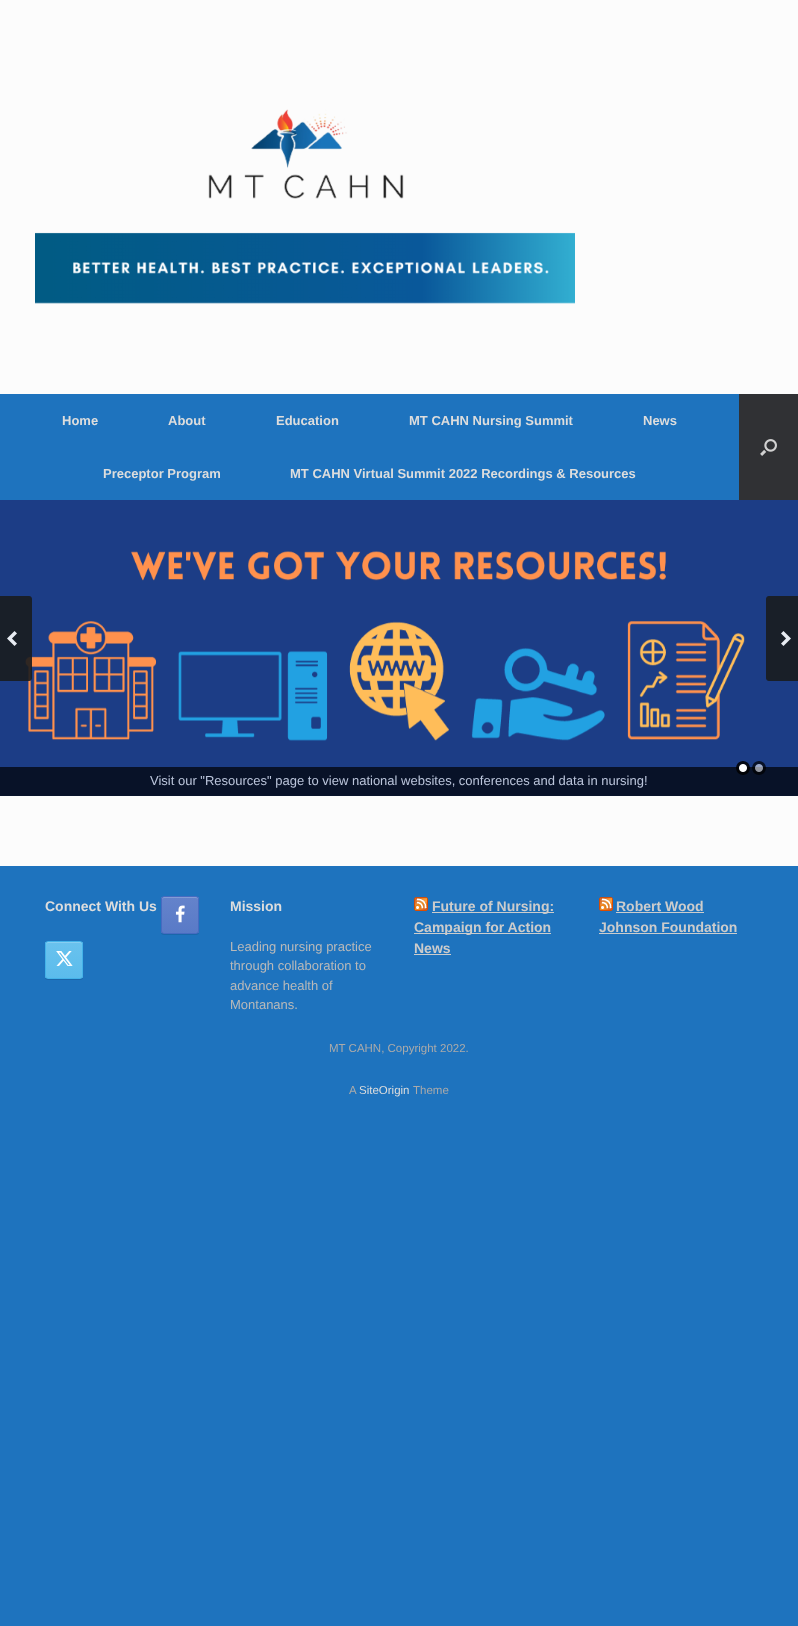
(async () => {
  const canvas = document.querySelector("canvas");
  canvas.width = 798;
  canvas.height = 1626;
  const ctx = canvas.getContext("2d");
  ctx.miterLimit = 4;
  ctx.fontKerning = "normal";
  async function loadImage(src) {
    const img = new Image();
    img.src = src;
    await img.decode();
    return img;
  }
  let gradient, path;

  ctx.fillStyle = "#1e73be";
  ctx.fillRect(0, 0, 798, 1626);
  ctx.fillStyle = "#fcfcfc";
  ctx.fillRect(0, 0, 798, 394);
  ctx.drawImage(await loadImage("img/1.png"), 35, 109, 540, 195);
  ctx.fillStyle = "#303134";
  ctx.fillRect(739, 394, 59, 106);
  ctx.drawImage(await loadImage("img/2.png"), 760, 439, 17, 17);
  ctx.drawImage(await loadImage("img/7.png"), 0, 500, 798, 296);
  ctx.drawImage(await loadImage("img/3.png"), 0, 596, 32, 85);
  ctx.drawImage(await loadImage("img/4.png"), 766, 596, 32, 85);
  ctx.fillStyle = "rgba(0, 0, 0, 0.7)";
  ctx.fillRect(0, 767, 798, 29);
  ctx.drawImage(await loadImage("img/5.png"), 736, 761, 14, 14);
  ctx.drawImage(await loadImage("img/6.png"), 752, 761, 14, 14);
  ctx.fillStyle = "#fcfcfc";
  ctx.fillRect(0, 796, 798, 70);
  ctx.fillStyle = "rgba(0, 0, 0, 0.1)";
  ctx.filter = "blur(0.5px)";
  ctx.beginPath();
  ctx.roundRect(161, 897, 38, 38, 3);
  ctx.fill();
  ctx.filter = "none";
  ctx.save();
  ctx.beginPath();
  ctx.roundRect(161, 896, 38, 38, 3);
  ctx.clip();
  gradient = ctx.createLinearGradient(180, 933, 180, 897);
  gradient.addColorStop(0, "#597ac7");
  gradient.addColorStop(1, "#6483cb");
  ctx.fillStyle = gradient;
  ctx.fillRect(161, 897, 38, 36);
  ctx.restore();
  ctx.fillStyle = "#839cd5";
  path = new Path2D("M164 898H196C197 898 198 899 198 900C198 895.5 194.5 897 190.5 897H169.5C165.5 897 162 895.5 162 900C162 899 163 898 164 898Z");
  ctx.fill(path);
  ctx.beginPath();
  ctx.roundRect(161.5, 896.5, 37, 37, 2.5);
  ctx.strokeStyle = "#466bc1";
  ctx.stroke();
  ctx.drawImage(await loadImage("img/8.png"), 175, 905, 10, 18);
  ctx.fillStyle = "rgba(0, 0, 0, 0.1)";
  ctx.filter = "blur(0.5px)";
  ctx.beginPath();
  ctx.roundRect(45, 942, 38, 38, 3);
  ctx.fill();
  ctx.filter = "none";
  ctx.save();
  ctx.beginPath();
  ctx.roundRect(45, 941, 38, 38, 3);
  ctx.clip();
  gradient = ctx.createLinearGradient(64, 978, 64, 942);
  gradient.addColorStop(0, "#5bbcec");
  gradient.addColorStop(1, "#69c2ee");
  ctx.fillStyle = gradient;
  ctx.fillRect(45, 942, 38, 36);
  ctx.restore();
  ctx.fillStyle = "#87cef1";
  path = new Path2D("M48 943H80C81 943 82 944 82 945C82 940.5 78.5 942 74.5 942H53.5C49.5 942 46 940.5 46 945C46 944 47 943 48 943Z");
  ctx.fill(path);
  ctx.beginPath();
  ctx.roundRect(45.5, 941.5, 37, 37, 2.5);
  ctx.strokeStyle = "#44b3e9";
  ctx.stroke();
  ctx.drawImage(await loadImage("img/9.png"), 56, 951, 17, 15);
  ctx.drawImage(await loadImage("img/10.png"), 414, 897, 14, 14);
  for (const [x, y, w, h, color] of [
    [432, 912, 122, 1, "#cccccc"],
    [414, 933, 137, 1, "#cccccc"],
    [414, 954, 37, 1, "#cccccc"],
  ]) {
    ctx.fillStyle = color;
    ctx.fillRect(x, y, w, h);
  }
  ctx.drawImage(await loadImage("img/10.png"), 599, 897, 14, 14);
  ctx.fillRect(616, 912, 88, 1);
  ctx.fillRect(599, 933, 138, 1);
  ctx.font = "bold 13px Liberation Sans";
  ctx.fillStyle = "#dddddd";
  for (const [text, x, y] of [
    ["Home", 62, 425],
    ["About", 168, 425],
    ["Education", 276, 425],
    ["MT CAHN Nursing Summit", 409, 425],
    ["News", 643, 425],
    ["Preceptor Program", 103, 478],
    ["MT CAHN Virtual Summit 2022 Recordings & Resources", 290, 478],
  ]) {
    ctx.fillText(text, x, y);
  }
  ctx.font = "13px Liberation Sans";
  ctx.fillStyle = "#bbc5db";
  ctx.fillText("Visit our \"Resources\" page to view national websites, conferences and data in nursing!", 150, 785);
  ctx.font = "bold 14px Liberation Sans";
  ctx.fillStyle = "#dddddd";
  ctx.fillText("Connect With Us", 45, 911);
  ctx.fillText("Mission", 230, 911);
  ctx.font = "13px Liberation Sans";
  ctx.fillStyle = "#b9b9b9";
  for (const [text, x, y] of [
    ["Leading nursing practice", 230, 951],
    ["through collaboration to", 230, 970],
    ["advance health of", 230, 990],
    ["Montanans.", 230, 1009],
  ]) {
    ctx.fillText(text, x, y);
  }
  ctx.font = "bold 14px Liberation Sans";
  ctx.fillStyle = "#cccccc";
  for (const [text, x, y] of [
    ["Future of Nursing:", 432, 911],
    ["Campaign for Action", 414, 932],
    ["News", 414, 953],
    ["Robert Wood", 616, 911],
    ["Johnson Foundation", 599, 932],
  ]) {
    ctx.fillText(text, x, y);
  }
  ctx.font = "11.5px Liberation Sans";
  ctx.fillStyle = "#aaaaaa";
  ctx.fillText("MT CAHN, Copyright 2022.", 329, 1052);
  ctx.fillText("A", 349, 1094);
  ctx.fillStyle = "#dddddd";
  ctx.fillText("SiteOrigin", 359, 1094);
  ctx.fillStyle = "#aaaaaa";
  ctx.fillText("Theme", 413, 1094);
})();
